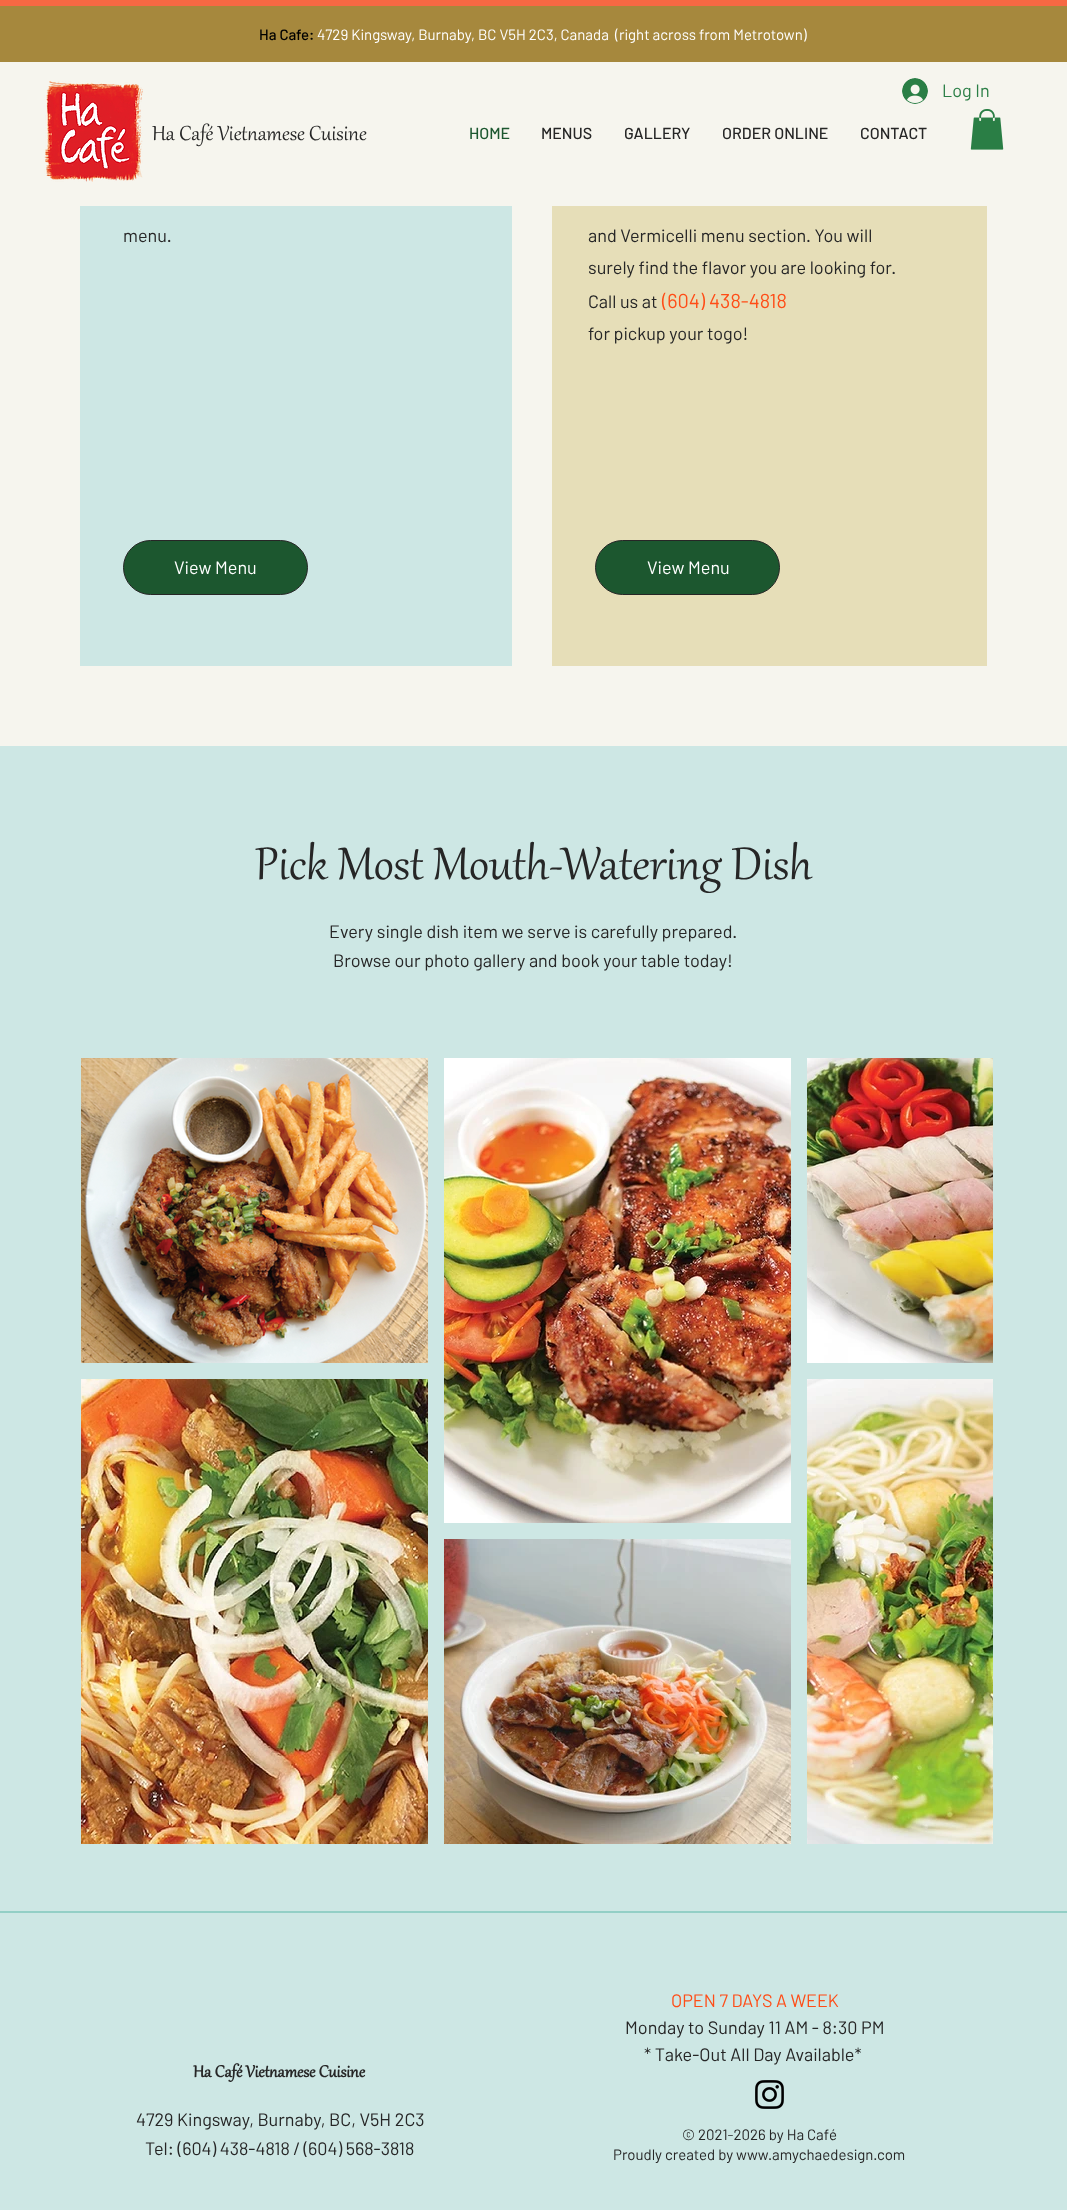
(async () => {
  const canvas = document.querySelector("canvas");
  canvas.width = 1067;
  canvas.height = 2210;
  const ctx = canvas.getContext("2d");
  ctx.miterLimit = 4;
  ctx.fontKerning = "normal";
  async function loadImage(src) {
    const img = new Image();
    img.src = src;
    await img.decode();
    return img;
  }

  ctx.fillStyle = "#f6f5ee";
  ctx.fillRect(0, 0, 1067, 2210);
  ctx.fillStyle = "#f76843";
  ctx.fillRect(0, 0, 1067, 6);
  ctx.fillStyle = "#a6883d";
  ctx.fillRect(0, 6, 1067, 56);
  ctx.drawImage(await loadImage("img/1.png"), 44, 81, 99, 101);
  ctx.drawImage(await loadImage("img/2.png"), 902, 78, 26, 26);
  ctx.drawImage(await loadImage("img/3.png"), 970, 109, 34, 41);
  ctx.fillStyle = "#cde7e4";
  ctx.fillRect(80, 206, 432, 460);
  ctx.fillStyle = "#1c572f";
  ctx.beginPath();
  ctx.roundRect(123.5, 540.5, 184, 54, 27);
  ctx.fill();
  ctx.strokeStyle = "#262626";
  ctx.stroke();
  ctx.fillStyle = "#e6deb8";
  ctx.fillRect(552, 206, 435, 460);
  ctx.fillStyle = "#1c572f";
  ctx.beginPath();
  ctx.roundRect(595.5, 540.5, 184, 54, 27);
  ctx.fill();
  ctx.stroke();
  ctx.fillStyle = "#cde7e4";
  ctx.fillRect(0, 746, 1067, 1464);
  ctx.drawImage(await loadImage("img/4.png"), 81, 1058, 347, 305);
  ctx.drawImage(await loadImage("img/5.png"), 81, 1379, 347, 465);
  ctx.drawImage(await loadImage("img/6.png"), 444, 1058, 347, 465);
  ctx.drawImage(await loadImage("img/7.png"), 444, 1539, 347, 305);
  ctx.drawImage(await loadImage("img/8.png"), 807, 1058, 186, 305);
  ctx.drawImage(await loadImage("img/9.png"), 807, 1379, 186, 465);
  ctx.fillStyle = "#93cfc6";
  ctx.fillRect(0, 1911, 1067, 2);
  ctx.drawImage(await loadImage("img/10.png"), 755, 2080, 29, 29);
  ctx.font = "500 15px Barlow";
  ctx.fillStyle = "#000000";
  ctx.fillText("Ha Cafe:", 259, 40);
  ctx.font = "15px Barlow";
  ctx.fillStyle = "#ffffff";
  ctx.fillText("4729 Kingsway, Burnaby, BC V5H 2C3, Canada", 317, 40);
  ctx.fillText("(right across from Metrotown)", 615, 40);
  ctx.font = "25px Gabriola";
  ctx.fillStyle = "#262626";
  ctx.fillText("Ha Café Vietnamese Cuisine", 152, 140);
  ctx.font = "18px Barlow";
  ctx.fillStyle = "#2a7e45";
  ctx.fillText("Log In", 942, 97);
  ctx.font = "500 16px Barlow";
  ctx.fillStyle = "#1c572f";
  ctx.fillText("HOME", 469, 139);
  ctx.fillStyle = "#262626";
  for (const [text, x, y] of [
    ["MENUS", 541, 139],
    ["GALLERY", 624, 139],
    ["ORDER ONLINE", 722, 139],
    ["CONTACT", 860, 139],
  ]) {
    ctx.fillText(text, x, y);
  }
  ctx.font = "18px Barlow";
  ctx.fillText("menu.", 123, 242);
  ctx.fillStyle = "#ffffff";
  ctx.fillText("View Menu", 174, 574);
  ctx.fillStyle = "#262626";
  for (const [text, x, y] of [
    ["and Vermicelli menu section. You will", 588, 242],
    ["surely find the flavor you are looking for.", 588, 274],
    ["Call us at", 588, 308],
  ]) {
    ctx.fillText(text, x, y);
  }
  ctx.font = "20px Barlow";
  ctx.fillStyle = "#ff4d17";
  ctx.fillText("(604) 438-4818", 662, 308);
  ctx.font = "18px Barlow";
  ctx.fillStyle = "#262626";
  ctx.fillText("for pickup your togo!", 588, 340);
  ctx.fillStyle = "#ffffff";
  ctx.fillText("View Menu", 647, 574);
  ctx.font = "56px Gabriola";
  ctx.fillStyle = "#262626";
  ctx.fillText("Pick Most Mouth-Watering Dish", 255, 879);
  ctx.font = "18px Barlow";
  ctx.fillText("Every single dish item we serve is carefully prepared.", 329, 938);
  ctx.fillText("Browse our photo gallery and book your table today!", 333, 967);
  ctx.font = "bold 20px Gabriola";
  ctx.fillText("Ha Café Vietnamese Cuisine", 193, 2077);
  ctx.font = "18px Barlow";
  ctx.fillText("4729 Kingsway, Burnaby, BC, V5H 2C3", 136, 2126);
  ctx.fillText("Tel: (604) 438-4818 / (604) 568-3818", 145, 2155);
  ctx.fillStyle = "#ff4d17";
  ctx.fillText("OPEN 7 DAYS A WEEK", 671, 2007);
  ctx.fillStyle = "#262626";
  ctx.fillText("Monday to Sunday 11 AM - 8:30 PM", 625, 2034);
  ctx.fillText("* Take-Out All Day Available*", 644, 2061);
  ctx.font = "15px Barlow";
  ctx.fillText("© 2021-2026 by Ha Café", 682, 2140);
  ctx.fillText("Proudly created by www.amychaedesign.com", 613, 2160);
})();
